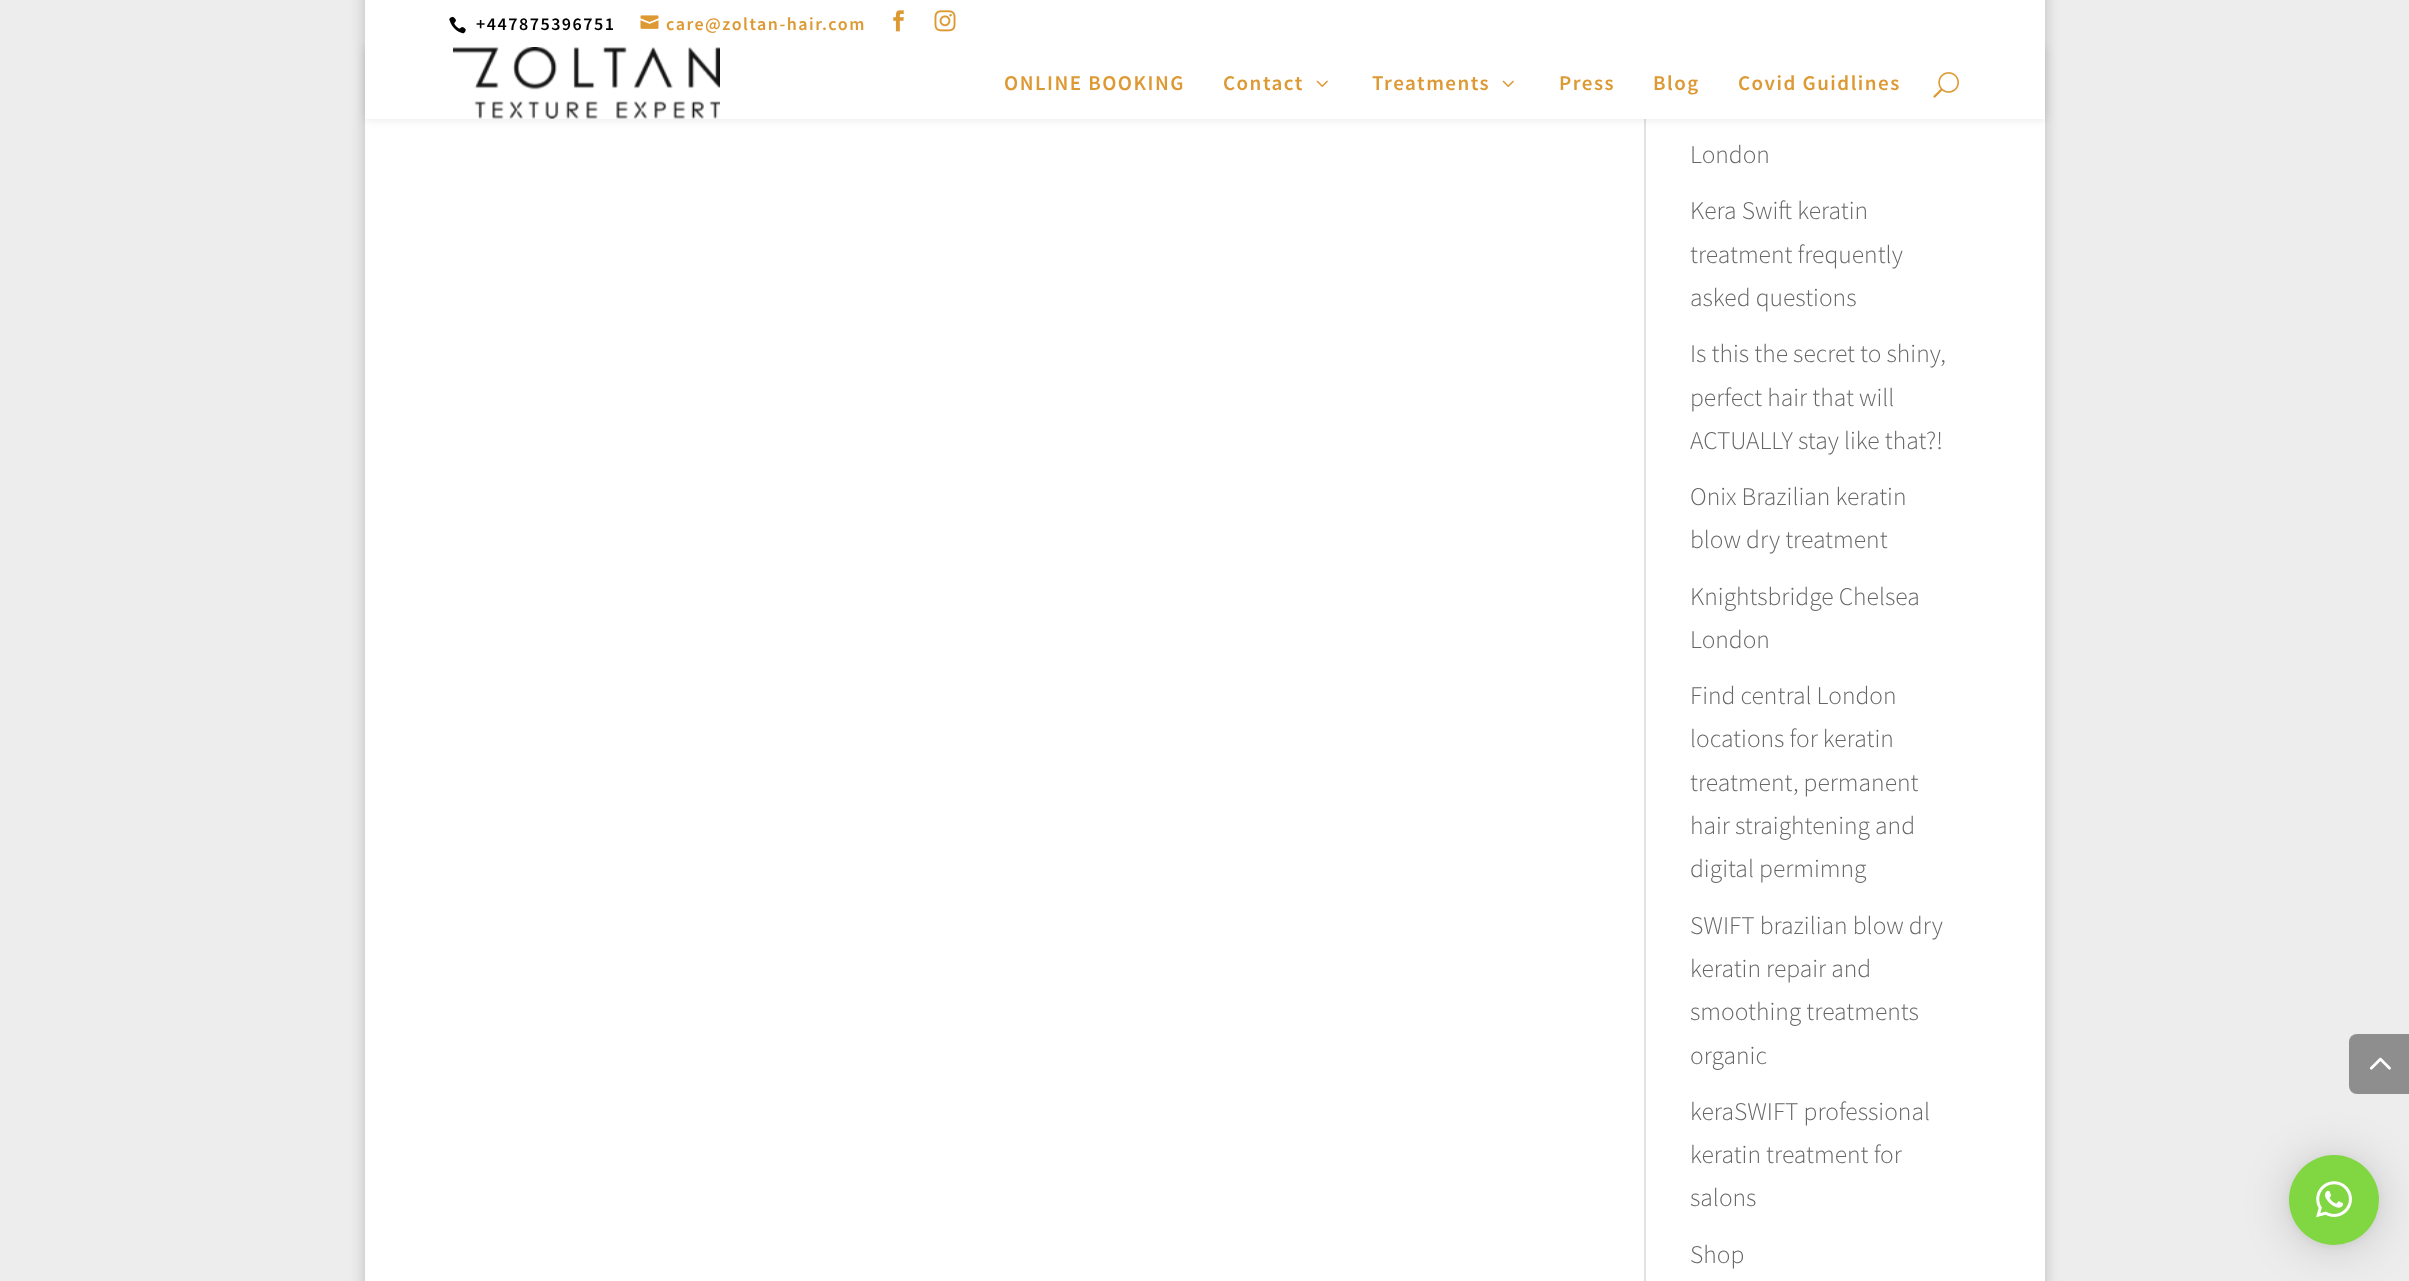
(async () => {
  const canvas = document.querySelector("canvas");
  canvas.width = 2409;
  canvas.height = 1281;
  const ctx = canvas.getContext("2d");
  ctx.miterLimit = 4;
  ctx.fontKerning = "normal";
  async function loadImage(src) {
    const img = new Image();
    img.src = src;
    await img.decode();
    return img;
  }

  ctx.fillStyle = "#ededed";
  ctx.fillRect(0, 0, 2409, 1281);
  ctx.fillStyle = "rgba(0, 0, 0, 0.2)";
  ctx.filter = "blur(7.5px)";
  ctx.beginPath();
  ctx.rect(365, -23, 1680, 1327);
  ctx.fill();
  ctx.filter = "none";
  ctx.fillStyle = "#ffffff";
  ctx.fillRect(365, 119, 1680, 1162);
  ctx.fillStyle = "#e2e2e2";
  ctx.fillRect(1644, 119, 2, 1162);
  ctx.fillStyle = "rgba(0, 0, 0, 0.1)";
  ctx.filter = "blur(5px)";
  ctx.beginPath();
  ctx.rect(365, 47, 1680, 72);
  ctx.fill();
  ctx.filter = "none";
  ctx.fillStyle = "#ffffff";
  ctx.fillRect(365, 0, 1680, 119);
  ctx.drawImage(await loadImage("img/1.png"), 449, 16, 17, 18);
  ctx.drawImage(await loadImage("img/2.png"), 640, 15, 19, 14);
  ctx.drawImage(await loadImage("img/3.png"), 893, 10, 11, 22);
  ctx.drawImage(await loadImage("img/4.png"), 934, 10, 22, 22);
  ctx.drawImage(await loadImage("img/5.png"), 453, 47, 267, 72);
  ctx.drawImage(await loadImage("img/6.png"), 1316, 80, 12, 7);
  ctx.drawImage(await loadImage("img/6.png"), 1502, 80, 12, 7);
  ctx.drawImage(await loadImage("img/7.png"), 1933, 72, 26, 26);
  ctx.fillStyle = "#8e8e8e";
  ctx.beginPath();
  ctx.roundRect(2349, 1034, 60, 60, [8, 0, 0, 8]);
  ctx.fill();
  ctx.drawImage(await loadImage("img/8.png"), 2369, 1057, 22, 13);
  ctx.fillStyle = "rgba(0, 0, 0, 0.16)";
  ctx.filter = "blur(24px)";
  ctx.beginPath();
  ctx.roundRect(2289, 1158, 90, 90, 45);
  ctx.fill();
  ctx.filter = "none";
  ctx.fillStyle = "rgba(0, 0, 0, 0.06)";
  ctx.filter = "blur(4.5px)";
  ctx.beginPath();
  ctx.roundRect(2289, 1157, 90, 90, 45);
  ctx.fill();
  ctx.filter = "none";
  ctx.fillStyle = "#81d742";
  ctx.beginPath();
  ctx.arc(2334, 1200, 45, 0, Math.PI * 2);
  ctx.fill();
  ctx.drawImage(await loadImage("img/9.png"), 2316, 1181, 36, 37);
  ctx.letterSpacing = "1.5px";
  ctx.font = "600 18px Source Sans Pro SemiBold";
  ctx.fillStyle = "#000000";
  ctx.fillText("+447875396751", 476, 30);
  ctx.fillStyle = "#dd9933";
  ctx.fillText("care@zoltan-hair.com", 666, 30);
  ctx.font = "600 21px Source Sans Pro SemiBold";
  for (const [text, x, y] of [
    ["ONLINE BOOKING", 1004, 90],
    ["Contact", 1223, 90],
    ["Treatments", 1372, 90],
    ["Press", 1559, 90],
    ["Blog", 1653, 90],
    ["Covid Guidlines", 1738, 90],
  ]) {
    ctx.fillText(text, x, y);
  }
  ctx.letterSpacing = "0px";
  ctx.font = "300 25.5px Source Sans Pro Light";
  ctx.fillStyle = "#666666";
  for (const [text, x, y] of [
    ["London", 1690, 163],
    ["Kera Swift keratin", 1690, 219],
    ["treatment frequently", 1690, 263],
    ["asked questions", 1690, 306],
    ["Is this the secret to shiny,", 1690, 362],
    ["perfect hair that will", 1690, 406],
    ["ACTUALLY stay like that?!", 1690, 449],
    ["Onix Brazilian keratin", 1690, 505],
    ["blow dry treatment", 1690, 548],
    ["Knightsbridge Chelsea", 1690, 605],
    ["London", 1690, 648],
    ["Find central London", 1690, 704],
    ["locations for keratin", 1690, 747],
    ["treatment, permanent", 1690, 791],
    ["hair straightening and", 1690, 834],
    ["digital permimng", 1690, 877],
    ["SWIFT brazilian blow dry", 1690, 934],
    ["keratin repair and", 1690, 977],
    ["smoothing treatments", 1690, 1020],
    ["organic", 1690, 1064],
    ["keraSWIFT professional", 1690, 1120],
    ["keratin treatment for", 1690, 1163],
    ["salons", 1690, 1206],
    ["Shop", 1690, 1263],
  ]) {
    ctx.fillText(text, x, y);
  }
})();
